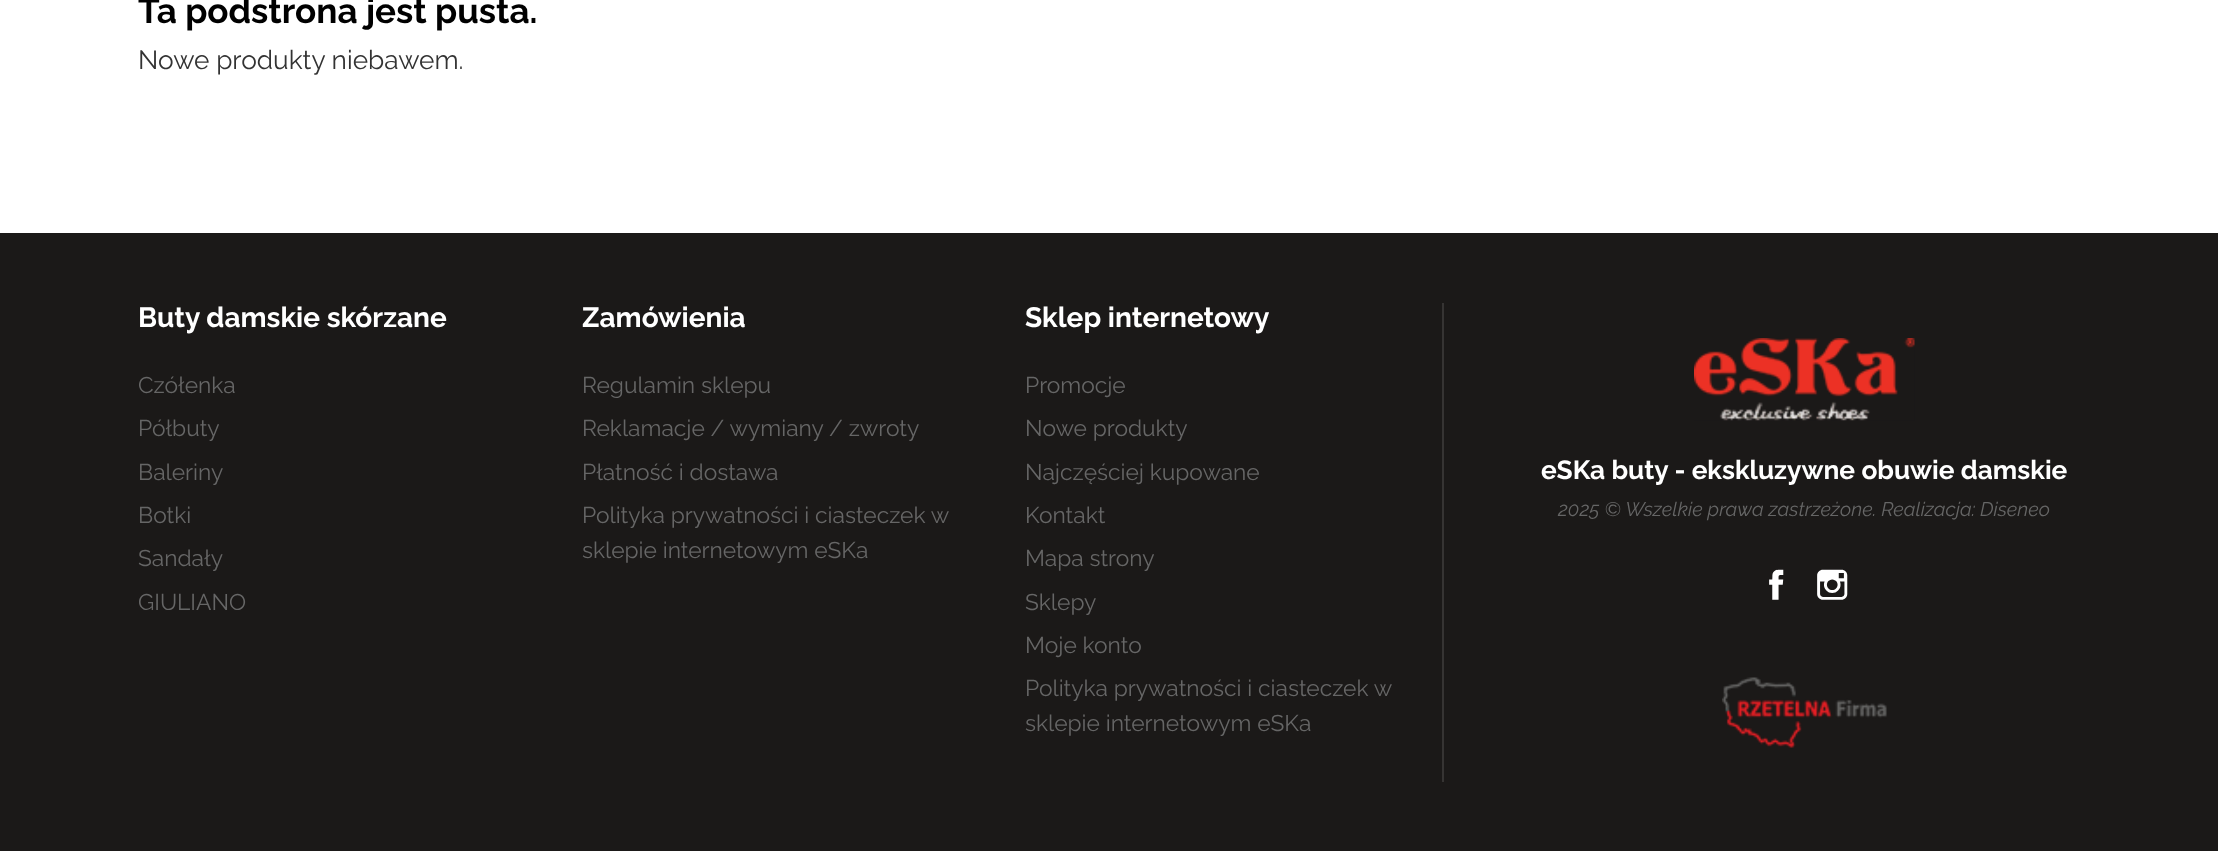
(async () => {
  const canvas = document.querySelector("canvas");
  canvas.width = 2218;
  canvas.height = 851;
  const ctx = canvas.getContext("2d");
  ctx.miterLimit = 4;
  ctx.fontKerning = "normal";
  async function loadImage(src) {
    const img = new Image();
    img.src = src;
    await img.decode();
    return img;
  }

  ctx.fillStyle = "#ffffff";
  ctx.fillRect(0, 0, 2218, 851);
  ctx.fillStyle = "#1b1918";
  ctx.fillRect(0, 233, 2218, 618);
  ctx.fillStyle = "#363433";
  ctx.fillRect(1442, 303, 2, 479);
  ctx.drawImage(await loadImage("img/1.png"), 1694, 338, 221, 83);
  ctx.drawImage(await loadImage("img/2.png"), 1769, 569, 15, 31);
  ctx.drawImage(await loadImage("img/3.png"), 1817, 569, 31, 31);
  ctx.drawImage(await loadImage("img/4.png"), 1722, 677, 165, 71);
  ctx.font = "bold 35px Raleway";
  ctx.fillStyle = "#000000";
  ctx.fillText("Ta podstrona jest pusta.", 138, 23);
  ctx.font = "26.25px Raleway";
  ctx.fillStyle = "#333333";
  ctx.fillText("Nowe produkty niebawem.", 138, 69);
  ctx.font = "bold 28px Raleway";
  ctx.fillStyle = "#ffffff";
  ctx.fillText("Buty damskie skórzane", 138, 327);
  ctx.font = "22.75px Raleway";
  ctx.fillStyle = "#666666";
  for (const [text, x, y] of [
    ["Czółenka", 138, 393],
    ["Półbuty", 138, 436],
    ["Baleriny", 138, 480],
    ["Botki", 138, 523],
    ["Sandały", 138, 566],
    ["GIULIANO", 138, 610],
  ]) {
    ctx.fillText(text, x, y);
  }
  ctx.font = "bold 28px Raleway";
  ctx.fillStyle = "#ffffff";
  ctx.fillText("Zamówienia", 582, 327);
  ctx.font = "22.75px Raleway";
  ctx.fillStyle = "#666666";
  for (const [text, x, y] of [
    ["Regulamin sklepu", 582, 393],
    ["Reklamacje / wymiany / zwroty", 582, 436],
    ["Płatność i dostawa", 582, 480],
    ["Polityka prywatności i ciasteczek w", 582, 523],
    ["sklepie internetowym eSKa", 582, 558],
  ]) {
    ctx.fillText(text, x, y);
  }
  ctx.font = "bold 28px Raleway";
  ctx.fillStyle = "#ffffff";
  ctx.fillText("Sklep internetowy", 1025, 327);
  ctx.font = "22.75px Raleway";
  ctx.fillStyle = "#666666";
  for (const [text, x, y] of [
    ["Promocje", 1025, 393],
    ["Nowe produkty", 1025, 436],
    ["Najczęściej kupowane", 1025, 480],
    ["Kontakt", 1025, 523],
    ["Mapa strony", 1025, 566],
    ["Sklepy", 1025, 610],
    ["Moje konto", 1025, 653],
    ["Polityka prywatności i ciasteczek w", 1025, 696],
    ["sklepie internetowym eSKa", 1025, 731],
  ]) {
    ctx.fillText(text, x, y);
  }
  ctx.font = "bold 26.25px Raleway";
  ctx.fillStyle = "#ffffff";
  ctx.fillText("eSKa buty - ekskluzywne obuwie damskie", 1541, 479);
  ctx.font = "italic 19.6px Raleway";
  ctx.fillStyle = "#666666";
  ctx.fillText("2025 © Wszelkie prawa zastrzeżone. Realizacja:", 1558, 516);
  ctx.fillText("Diseneo", 1980, 516);
})();
